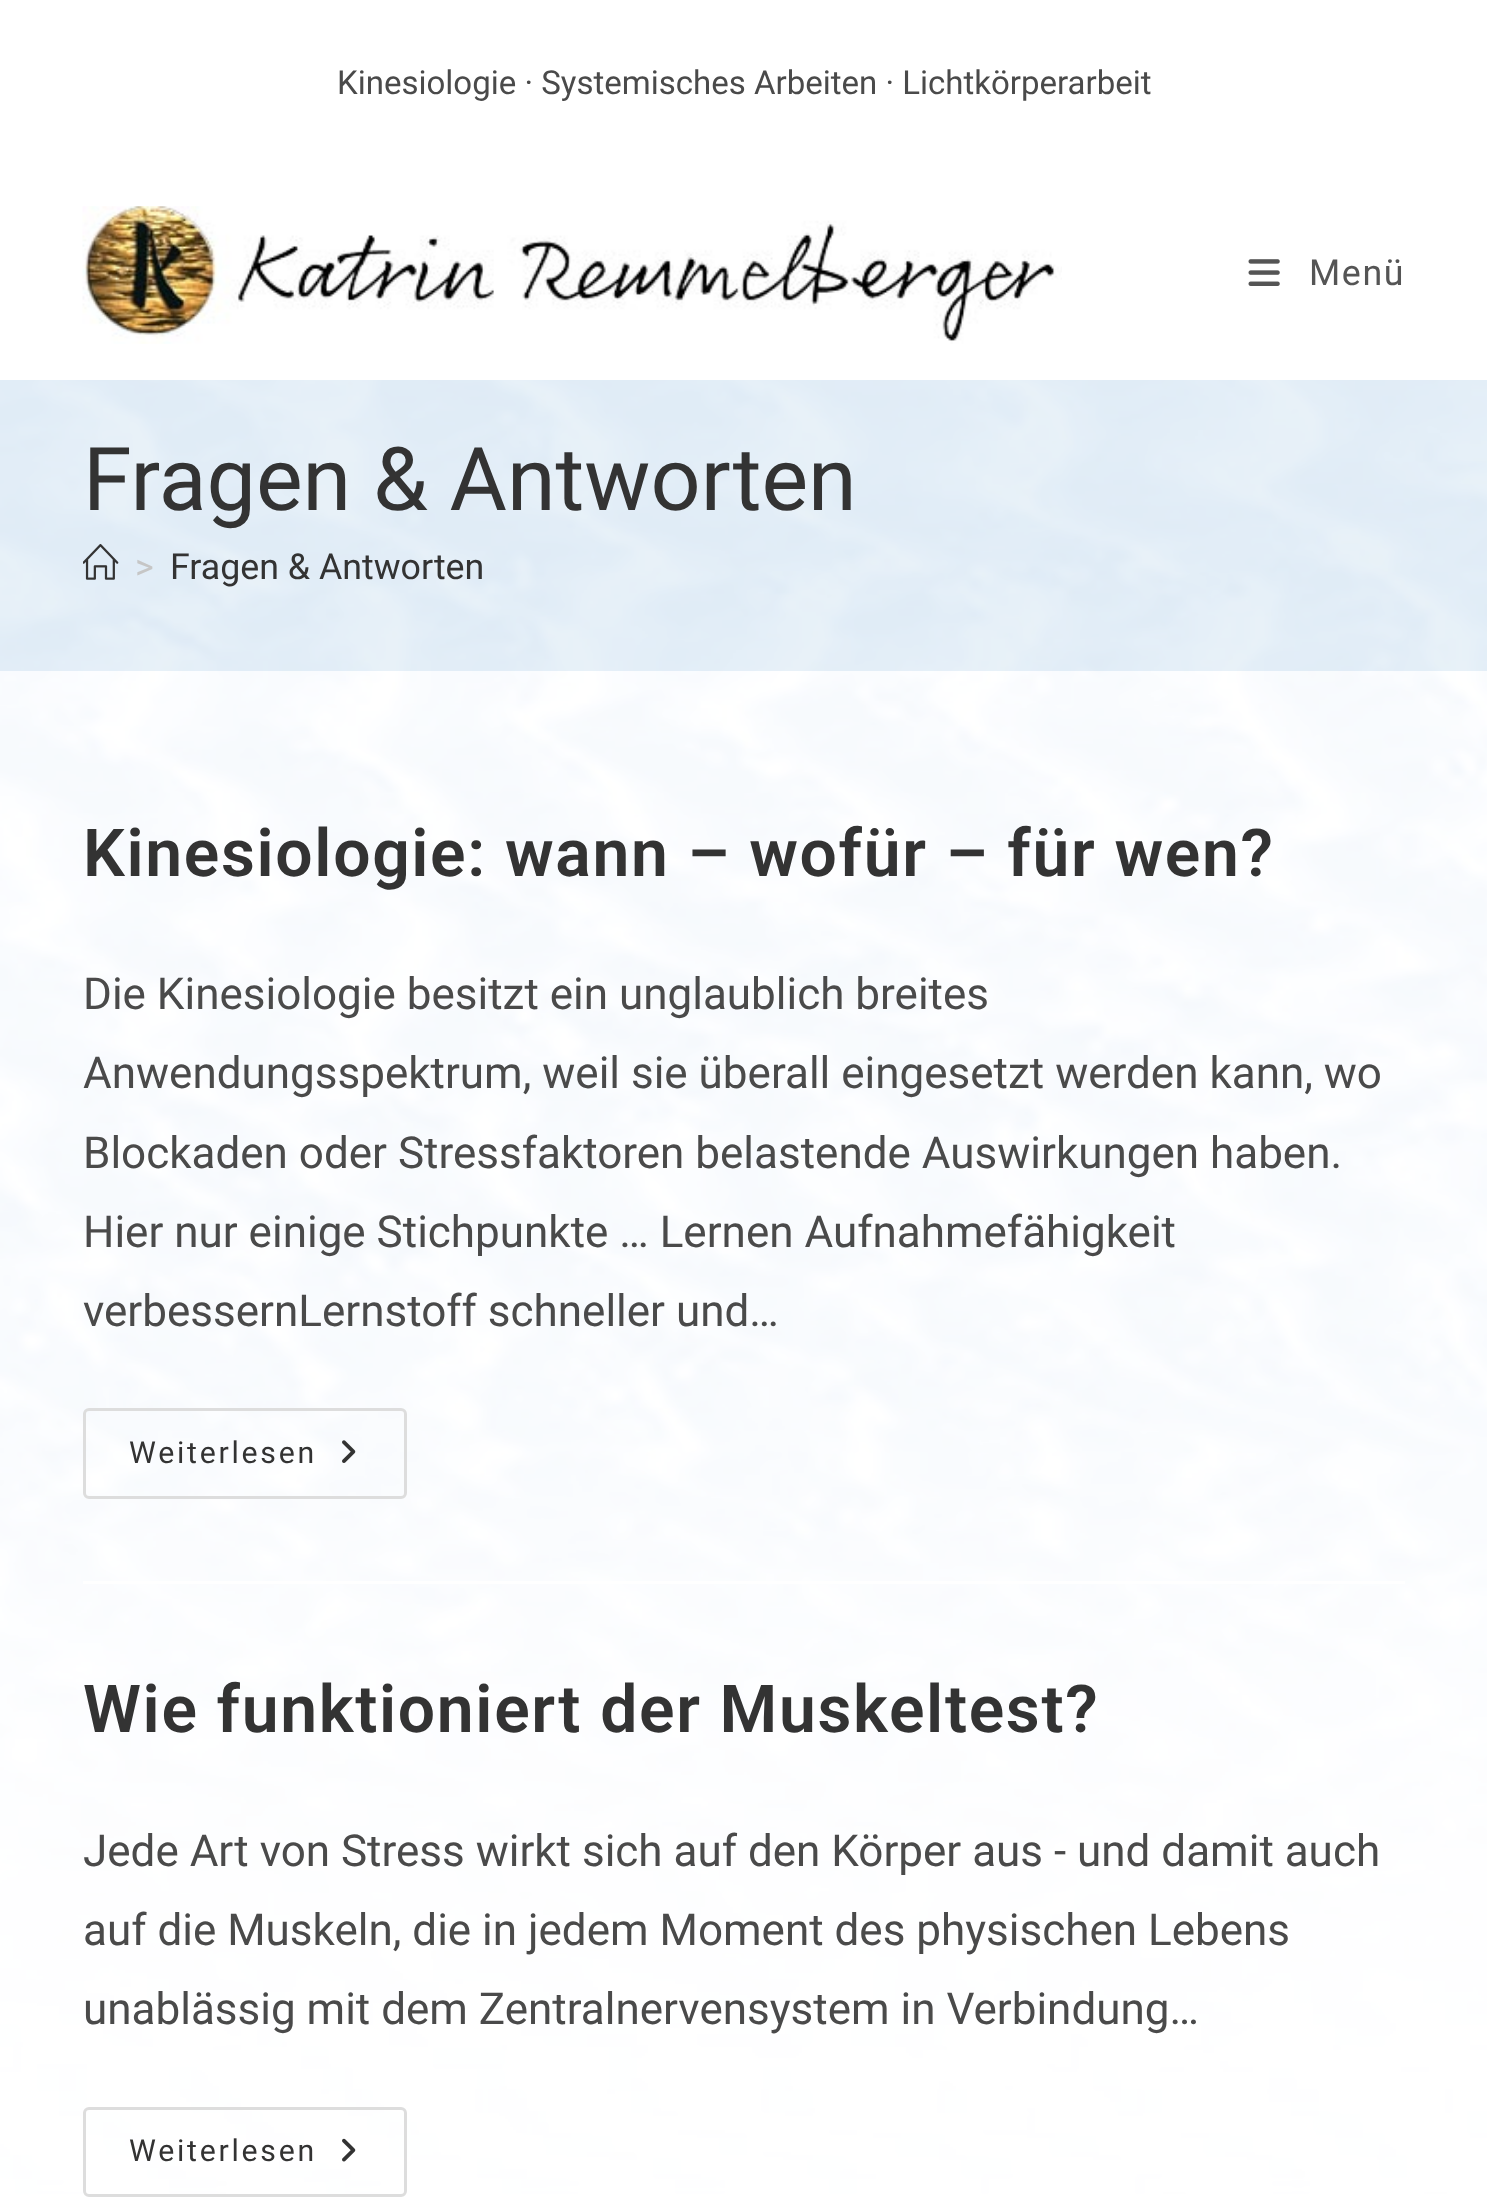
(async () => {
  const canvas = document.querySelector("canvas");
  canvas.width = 1487;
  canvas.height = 2207;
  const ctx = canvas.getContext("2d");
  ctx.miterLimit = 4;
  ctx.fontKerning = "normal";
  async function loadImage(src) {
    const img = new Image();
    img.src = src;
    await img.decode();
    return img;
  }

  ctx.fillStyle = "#ffffff";
  ctx.fillRect(0, 0, 1487, 2207);
  ctx.drawImage(await loadImage("img/1.png"), 0, 380, 1487, 1814);
  ctx.drawImage(await loadImage("img/2.png"), 82, 206, 980, 138);
  ctx.drawImage(await loadImage("img/3.png"), 1248, 259, 32, 27);
  ctx.fillStyle = "rgba(30, 115, 190, 0.1)";
  ctx.fillRect(0, 380, 1487, 291);
  ctx.drawImage(await loadImage("img/4.png"), 83, 544, 36, 36);
  ctx.fillStyle = "#ffffff";
  ctx.fillRect(83, 1581, 1322, 3);
  ctx.beginPath();
  ctx.roundRect(84.5, 1409.5, 321, 88, 4.5);
  ctx.strokeStyle = "#dddddd";
  ctx.lineWidth = 3;
  ctx.stroke();
  ctx.drawImage(await loadImage("img/5.png"), 342, 1440, 14, 23);
  ctx.beginPath();
  ctx.roundRect(84.5, 2108.5, 321, 87, 4.5);
  ctx.stroke();
  ctx.drawImage(await loadImage("img/6.png"), 342, 2138, 14, 24);
  ctx.font = "33px Roboto";
  ctx.fillStyle = "#4a4a4a";
  ctx.fillText("Kinesiologie · Systemisches Arbeiten · Lichtkörperarbeit", 337, 94);
  ctx.letterSpacing = "1.65px";
  ctx.font = "35.75px Roboto";
  ctx.fillStyle = "#555555";
  ctx.fillText("Menü", 1309, 285);
  ctx.letterSpacing = "0px";
  ctx.font = "88px Roboto";
  ctx.fillStyle = "#333333";
  ctx.fillText("Fragen & Antworten", 83, 510);
  ctx.font = "35.75px Roboto";
  ctx.fillStyle = "#c6c6c6";
  ctx.fillText(">", 135, 579);
  ctx.fillStyle = "#333333";
  ctx.fillText("Fragen & Antworten", 170, 579);
  ctx.letterSpacing = "1.65px";
  ctx.font = "600 66px Roboto";
  ctx.fillText("Kinesiologie: wann – wofür – für wen?", 83, 876);
  ctx.letterSpacing = "0px";
  ctx.font = "44px Roboto";
  ctx.fillStyle = "#4a4a4a";
  for (const [text, x, y] of [
    ["Die Kinesiologie besitzt ein unglaublich breites", 83, 1009],
    ["Anwendungsspektrum, weil sie überall eingesetzt werden kann, wo", 83, 1088],
    ["Blockaden oder Stressfaktoren belastende Auswirkungen haben.", 83, 1168],
    ["Hier nur einige Stichpunkte … Lernen Aufnahmefähigkeit", 83, 1247],
    ["verbessernLernstoff schneller und…", 83, 1326],
  ]) {
    ctx.fillText(text, x, y);
  }
  ctx.letterSpacing = "2.75px";
  ctx.font = "30.25px Roboto";
  ctx.fillStyle = "#333333";
  ctx.fillText("Weiterlesen", 129, 1463);
  ctx.letterSpacing = "1.65px";
  ctx.font = "600 66px Roboto";
  ctx.fillText("Wie funktioniert der Muskeltest?", 83, 1732);
  ctx.letterSpacing = "0px";
  ctx.font = "44px Roboto";
  ctx.fillStyle = "#4a4a4a";
  for (const [text, x, y] of [
    ["Jede Art von Stress wirkt sich auf den Körper aus - und damit auch", 83, 1866],
    ["auf die Muskeln, die in jedem Moment des physischen Lebens", 83, 1945],
    ["unablässig mit dem Zentralnervensystem in Verbindung…", 83, 2024],
  ]) {
    ctx.fillText(text, x, y);
  }
  ctx.letterSpacing = "2.75px";
  ctx.font = "30.25px Roboto";
  ctx.fillStyle = "#333333";
  ctx.fillText("Weiterlesen", 129, 2161);
})();
